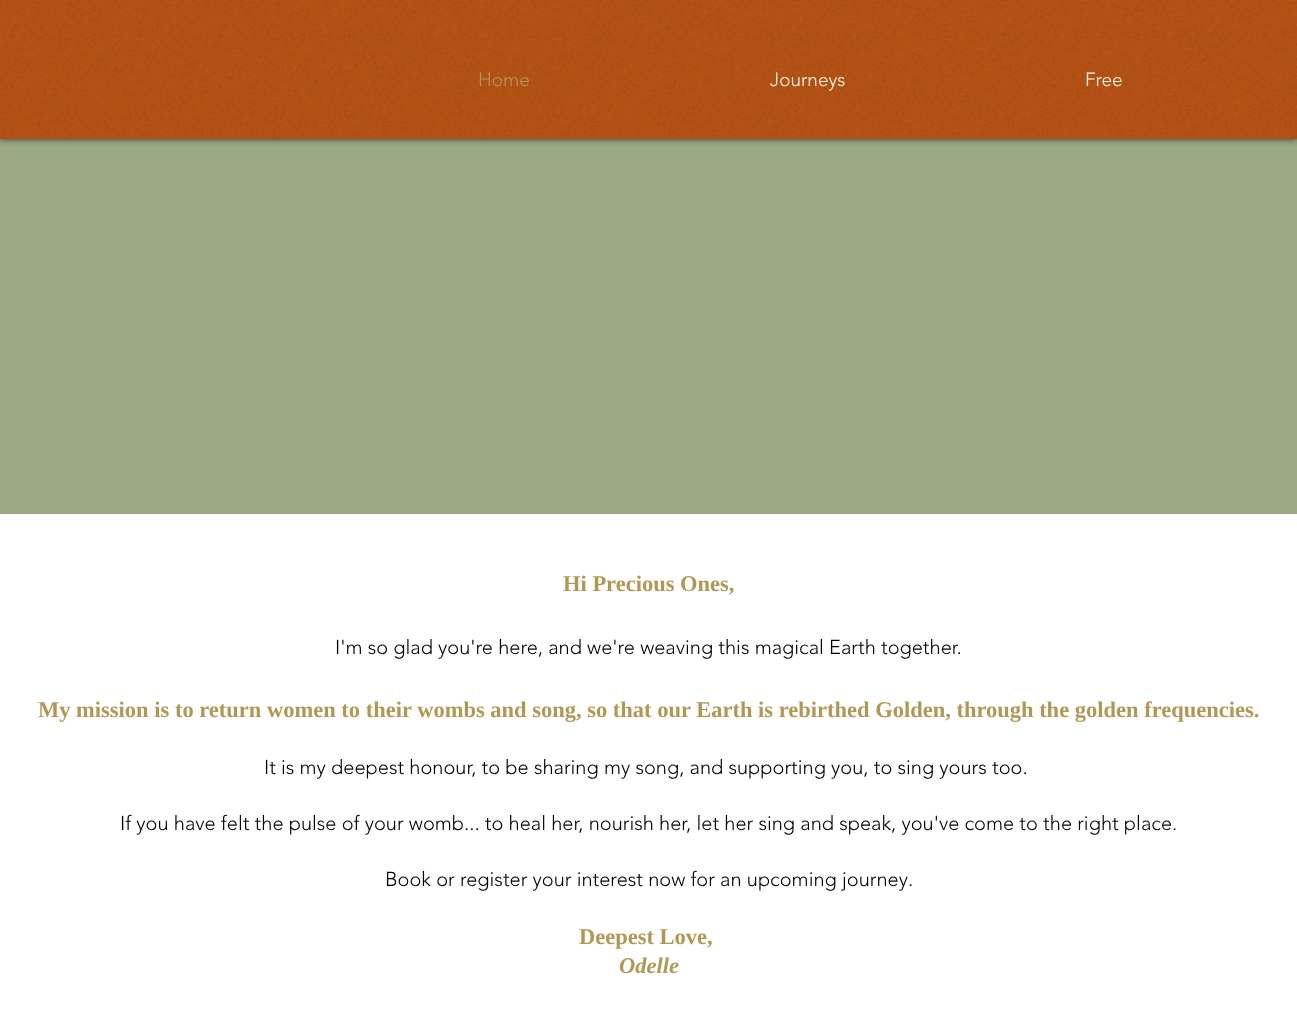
(async () => {
  const canvas = document.querySelector("canvas");
  canvas.width = 1297;
  canvas.height = 1019;
  const ctx = canvas.getContext("2d");
  ctx.miterLimit = 4;
  ctx.fontKerning = "normal";
  async function loadImage(src) {
    const img = new Image();
    img.src = src;
    await img.decode();
    return img;
  }

  ctx.fillStyle = "#9aa984";
  ctx.fillRect(0, 0, 1297, 1019);
  ctx.fillStyle = "rgba(0, 0, 0, 0.7)";
  ctx.filter = "blur(3px)";
  ctx.beginPath();
  ctx.rect(0, 0, 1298, 139);
  ctx.fill();
  ctx.filter = "none";
  ctx.fillStyle = "#b65214";
  ctx.fillRect(0, 0, 1297, 139);
  ctx.drawImage(await loadImage("img/1.png"), 0, 0, 1297, 139);
  ctx.fillStyle = "#fafafa";
  ctx.fillRect(0, 514, 1297, 1);
  ctx.fillStyle = "#ffffff";
  ctx.fillRect(0, 515, 1297, 504);
  ctx.font = "300 19px 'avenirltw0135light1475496'";
  ctx.fillStyle = "#b09854";
  ctx.fillText("Home", 478, 86);
  ctx.fillStyle = "#fff7e6";
  ctx.fillText("Journeys", 770, 86);
  ctx.fillText("Free", 1085, 86);
  ctx.font = "bold 22.5px Liberation Serif";
  ctx.fillStyle = "#b09854";
  ctx.fillText("Hi Precious Ones,", 563, 591);
  ctx.font = "300 20px 'avenirltw0135light1475496'";
  ctx.fillStyle = "#000000";
  ctx.fillText("I'm so glad you're here, and we're weaving this magical Earth together.", 335, 654);
  ctx.font = "bold 22.5px Liberation Serif";
  ctx.fillStyle = "#b09854";
  ctx.fillText("My mission is to return women to their wombs and song, so that our Earth is rebirthed Golden, through the golden frequencies.", 38, 717);
  ctx.font = "300 20px 'avenirltw0135light1475496'";
  ctx.fillStyle = "#000000";
  for (const [text, x, y] of [
    ["It is my deepest honour, to be sharing my song, and supporting you, to sing yours too.", 264, 774],
    ["If you have felt the pulse of your womb... to heal her, nourish her, let her sing and speak, you've come to the right place.", 120, 830],
    ["Book or register your interest now for an upcoming journey.", 385, 886],
  ]) {
    ctx.fillText(text, x, y);
  }
  ctx.font = "bold 22.5px Liberation Serif";
  ctx.fillStyle = "#b09854";
  ctx.fillText("Deepest Love,", 579, 944);
  ctx.font = "italic bold 22.5px Liberation Serif";
  ctx.fillText("Odelle", 619, 973);
})();
